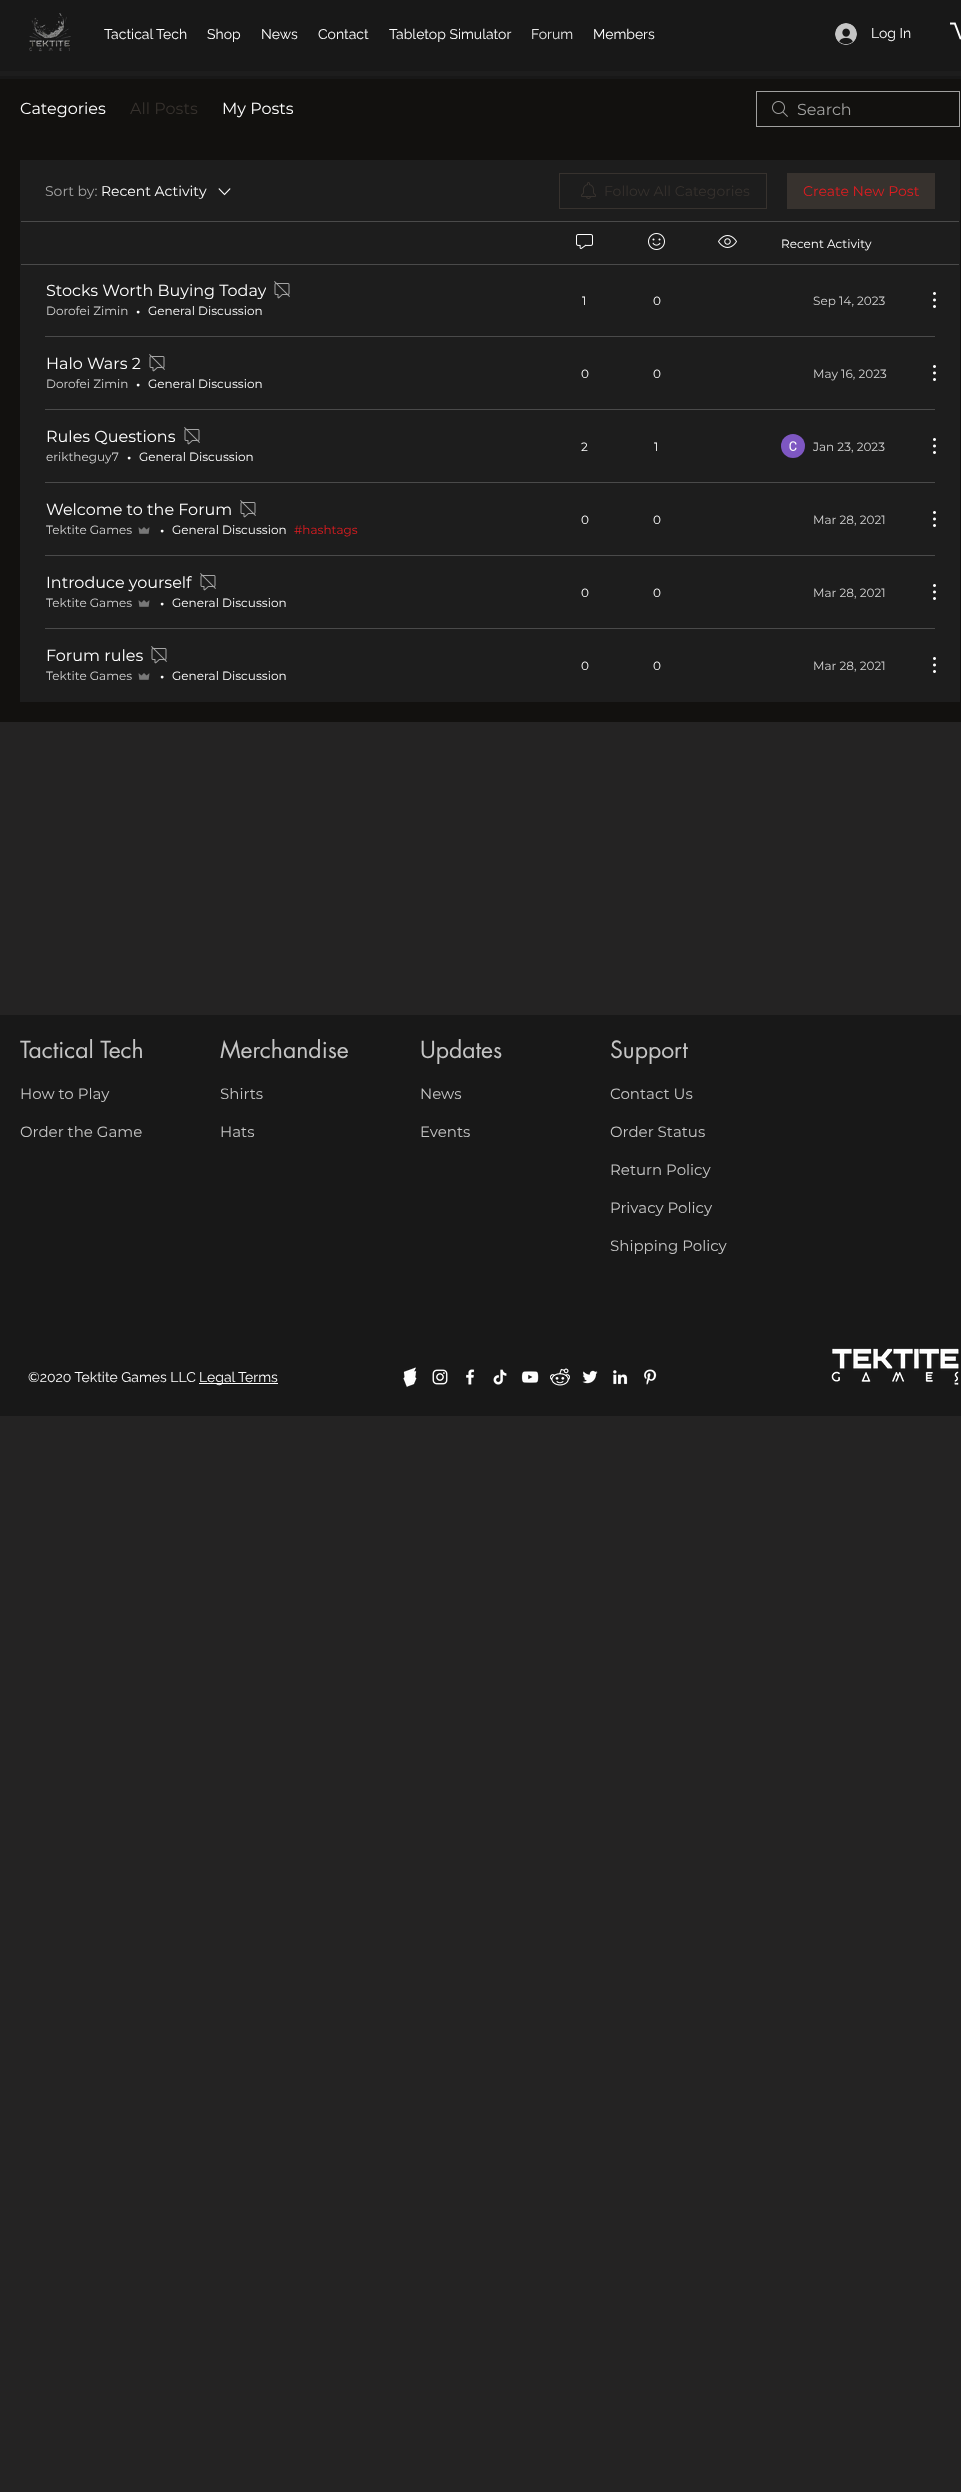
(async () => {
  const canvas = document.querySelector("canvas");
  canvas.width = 961;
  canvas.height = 2492;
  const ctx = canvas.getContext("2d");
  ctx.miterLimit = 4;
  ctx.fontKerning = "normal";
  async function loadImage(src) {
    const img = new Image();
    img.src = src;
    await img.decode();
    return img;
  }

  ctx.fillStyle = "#242323";
  ctx.fillRect(0, 0, 961, 2492);
  ctx.fillStyle = "#181818";
  ctx.fillRect(0, 0, 961, 79);
  ctx.drawImage(await loadImage("img/1.png"), 29, 13, 42, 39);
  ctx.drawImage(await loadImage("img/2.png"), 835, 23, 22, 22);
  ctx.drawImage(await loadImage("img/3.png"), 950, 22, 11, 18);
  ctx.fillStyle = "#1d1d1d";
  ctx.fillRect(0, 71, 961, 5);
  ctx.fillStyle = "#12110f";
  ctx.fillRect(0, 79, 961, 643);
  ctx.drawImage(await loadImage("img/4.png"), 772, 101, 16, 16);
  ctx.strokeStyle = "#a0a09f";
  ctx.strokeRect(756.5, 91.5, 203, 35);
  ctx.fillStyle = "#1d1d1d";
  ctx.fillRect(20, 160, 940, 542);
  ctx.drawImage(await loadImage("img/5.png"), 218, 188, 13, 8);
  ctx.strokeStyle = "#37322e";
  ctx.strokeRect(559.5, 173.5, 207, 35);
  ctx.drawImage(await loadImage("img/6.png"), 581, 182, 15, 17);
  ctx.fillStyle = "#37322e";
  ctx.fillRect(787, 173, 148, 36);
  ctx.fillStyle = "#4a4a4a";
  ctx.fillRect(21, 221, 938, 1);
  ctx.drawImage(await loadImage("img/7.png"), 576, 234, 17, 15);
  ctx.drawImage(await loadImage("img/8.png"), 648, 233, 17, 17);
  ctx.drawImage(await loadImage("img/9.png"), 718, 235, 19, 13);
  ctx.fillRect(21, 264, 938, 1);
  ctx.drawImage(await loadImage("img/10.png"), 274, 281, 16, 18);
  ctx.drawImage(await loadImage("img/11.png"), 933, 292, 3, 16);
  ctx.fillRect(45, 336, 890, 1);
  ctx.drawImage(await loadImage("img/10.png"), 149, 354, 16, 18);
  ctx.drawImage(await loadImage("img/11.png"), 933, 365, 3, 16);
  ctx.fillRect(45, 409, 890, 1);
  ctx.drawImage(await loadImage("img/10.png"), 184, 427, 16, 18);
  ctx.drawImage(await loadImage("img/12.png"), 781, 434, 24, 24);
  ctx.drawImage(await loadImage("img/11.png"), 933, 438, 3, 16);
  ctx.fillRect(45, 482, 890, 1);
  ctx.drawImage(await loadImage("img/10.png"), 240, 500, 16, 18);
  ctx.drawImage(await loadImage("img/13.png"), 138, 527, 12, 7);
  ctx.drawImage(await loadImage("img/11.png"), 933, 511, 3, 16);
  ctx.fillRect(45, 555, 890, 1);
  ctx.drawImage(await loadImage("img/10.png"), 200, 573, 16, 18);
  ctx.drawImage(await loadImage("img/13.png"), 138, 600, 12, 7);
  ctx.drawImage(await loadImage("img/11.png"), 933, 584, 3, 16);
  ctx.fillRect(45, 628, 890, 1);
  ctx.drawImage(await loadImage("img/10.png"), 151, 646, 16, 18);
  ctx.drawImage(await loadImage("img/13.png"), 138, 673, 12, 7);
  ctx.drawImage(await loadImage("img/11.png"), 933, 657, 3, 16);
  ctx.fillStyle = "#181818";
  ctx.fillRect(0, 1015, 961, 401);
  ctx.fillStyle = "#ffffff";
  ctx.fillRect(199, 1383, 79, 1);
  ctx.drawImage(await loadImage("img/14.png"), 403, 1367, 14, 20);
  ctx.drawImage(await loadImage("img/15.png"), 432, 1369, 16, 16);
  ctx.drawImage(await loadImage("img/16.png"), 466, 1369, 9, 16);
  ctx.drawImage(await loadImage("img/17.png"), 493, 1369, 14, 16);
  ctx.drawImage(await loadImage("img/18.png"), 521, 1371, 18, 12);
  ctx.drawImage(await loadImage("img/19.png"), 550, 1368, 20, 18);
  ctx.drawImage(await loadImage("img/20.png"), 582, 1370, 16, 14);
  ctx.drawImage(await loadImage("img/21.png"), 613, 1370, 15, 15);
  ctx.drawImage(await loadImage("img/22.png"), 644, 1369, 13, 16);
  ctx.drawImage(await loadImage("img/23.png"), 831, 1348, 128, 37);
  ctx.font = "14px Raleway";
  for (const [text, x, y] of [
    ["Tactical Tech", 104, 39],
    ["Shop", 207, 39],
    ["News", 261, 39],
    ["Contact", 318, 39],
    ["Tabletop Simulator", 389, 39],
  ]) {
    ctx.fillText(text, x, y);
  }
  ctx.fillStyle = "#e8e8e8";
  ctx.fillText("Forum", 531, 39);
  ctx.fillStyle = "#ffffff";
  ctx.fillText("Members", 593, 39);
  ctx.fillText("Log In", 871, 38);
  ctx.font = "16px Montserrat";
  ctx.fillText("Categories", 20, 114);
  ctx.fillStyle = "#37322e";
  ctx.fillText("All Posts", 130, 114);
  ctx.fillStyle = "#ffffff";
  ctx.fillText("My Posts", 222, 114);
  ctx.fillStyle = "#a0a09f";
  ctx.fillText("Search", 797, 115);
  ctx.font = "14px Montserrat";
  ctx.fillStyle = "#a5a5a5";
  ctx.fillText("Sort by:", 45, 196);
  ctx.fillStyle = "#ffffff";
  ctx.fillText("Recent Activity", 101, 196);
  ctx.fillStyle = "#37322e";
  ctx.fillText("Follow All Categories", 604, 196);
  ctx.fillStyle = "#e21c21";
  ctx.fillText("Create New Post", 803, 196);
  ctx.font = "12px Montserrat";
  ctx.fillStyle = "#ffffff";
  ctx.fillText("Recent Activity", 781, 248);
  ctx.save();
  ctx.beginPath();
  ctx.rect(46, 283, 220, 16);
  ctx.clip();
  ctx.font = "16px Montserrat";
  ctx.fillText("Stocks Worth Buying Today", 46, 296);
  ctx.restore();
  ctx.fillStyle = "#d2d2d2";
  ctx.fillText("Dorofei Zimin", 46, 315);
  ctx.font = "bold 14px Montserrat";
  ctx.fillStyle = "#ffffff";
  ctx.fillText("·", 136, 316);
  ctx.font = "12px Montserrat";
  for (const [text, x, y] of [
    ["General Discussion", 148, 315],
    ["1", 582, 305],
    ["0", 653, 305],
  ]) {
    ctx.fillText(text, x, y);
  }
  ctx.fillStyle = "#d2d2d2";
  ctx.fillText("Sep 14, 2023", 813, 305);
  ctx.font = "16px Montserrat";
  ctx.fillStyle = "#ffffff";
  ctx.fillText("Halo Wars 2", 46, 369);
  ctx.font = "12px Montserrat";
  ctx.fillStyle = "#d2d2d2";
  ctx.fillText("Dorofei Zimin", 46, 388);
  ctx.font = "bold 14px Montserrat";
  ctx.fillStyle = "#ffffff";
  ctx.fillText("·", 136, 389);
  ctx.font = "12px Montserrat";
  for (const [text, x, y] of [
    ["General Discussion", 148, 388],
    ["0", 581, 378],
    ["0", 653, 378],
  ]) {
    ctx.fillText(text, x, y);
  }
  ctx.fillStyle = "#d2d2d2";
  ctx.fillText("May 16, 2023", 813, 378);
  ctx.font = "16px Montserrat";
  ctx.fillStyle = "#ffffff";
  ctx.fillText("Rules Questions", 46, 442);
  ctx.font = "12px Montserrat";
  ctx.fillStyle = "#d2d2d2";
  ctx.fillText("eriktheguy7", 46, 461);
  ctx.font = "bold 14px Montserrat";
  ctx.fillStyle = "#ffffff";
  ctx.fillText("·", 127, 462);
  ctx.font = "12px Montserrat";
  for (const [text, x, y] of [
    ["General Discussion", 139, 461],
    ["2", 581, 451],
    ["1", 654, 451],
  ]) {
    ctx.fillText(text, x, y);
  }
  ctx.fillStyle = "#d2d2d2";
  ctx.fillText("Jan 23, 2023", 813, 451);
  ctx.font = "16px Montserrat";
  ctx.fillStyle = "#ffffff";
  ctx.fillText("Welcome to the Forum", 46, 515);
  ctx.font = "12px Montserrat";
  ctx.fillStyle = "#d2d2d2";
  ctx.fillText("Tektite Games", 46, 534);
  ctx.font = "bold 14px Montserrat";
  ctx.fillStyle = "#ffffff";
  ctx.fillText("·", 160, 535);
  ctx.font = "12px Montserrat";
  ctx.fillText("General Discussion", 172, 534);
  ctx.fillStyle = "#e21c21";
  ctx.fillText("#hashtags", 294, 534);
  ctx.fillStyle = "#ffffff";
  ctx.fillText("0", 581, 524);
  ctx.fillText("0", 653, 524);
  ctx.fillStyle = "#d2d2d2";
  ctx.fillText("Mar 28, 2021", 813, 524);
  ctx.font = "16px Montserrat";
  ctx.fillStyle = "#ffffff";
  ctx.fillText("Introduce yourself", 46, 588);
  ctx.font = "12px Montserrat";
  ctx.fillStyle = "#d2d2d2";
  ctx.fillText("Tektite Games", 46, 607);
  ctx.font = "bold 14px Montserrat";
  ctx.fillStyle = "#ffffff";
  ctx.fillText("·", 160, 608);
  ctx.font = "12px Montserrat";
  for (const [text, x, y] of [
    ["General Discussion", 172, 607],
    ["0", 581, 597],
    ["0", 653, 597],
  ]) {
    ctx.fillText(text, x, y);
  }
  ctx.fillStyle = "#d2d2d2";
  ctx.fillText("Mar 28, 2021", 813, 597);
  ctx.font = "16px Montserrat";
  ctx.fillStyle = "#ffffff";
  ctx.fillText("Forum rules", 46, 661);
  ctx.font = "12px Montserrat";
  ctx.fillStyle = "#d2d2d2";
  ctx.fillText("Tektite Games", 46, 680);
  ctx.font = "bold 14px Montserrat";
  ctx.fillStyle = "#ffffff";
  ctx.fillText("·", 160, 681);
  ctx.font = "12px Montserrat";
  for (const [text, x, y] of [
    ["General Discussion", 172, 680],
    ["0", 581, 670],
    ["0", 653, 670],
  ]) {
    ctx.fillText(text, x, y);
  }
  ctx.fillStyle = "#d2d2d2";
  ctx.fillText("Mar 28, 2021", 813, 670);
  ctx.font = "23px futura";
  ctx.fillStyle = "#c5c5c5";
  ctx.fillText("Tactical Tech", 20, 1058);
  ctx.font = "15px Montserrat";
  ctx.fillText("How to Play", 20, 1099);
  ctx.fillText("Order the Game", 20, 1137);
  ctx.font = "23px futura";
  ctx.fillText("Merchandise", 220, 1058);
  ctx.font = "15px Montserrat";
  ctx.fillText("Shirts", 220, 1099);
  ctx.fillText("Hats", 220, 1137);
  ctx.font = "23px futura";
  ctx.fillText("Updates", 420, 1058);
  ctx.font = "15px Montserrat";
  ctx.fillText("News", 420, 1099);
  ctx.fillText("Events", 420, 1137);
  ctx.font = "23px futura";
  ctx.fillText("Support", 610, 1058);
  ctx.font = "15px Montserrat";
  for (const [text, x, y] of [
    ["Contact Us", 610, 1099],
    ["Order Status", 610, 1137],
    ["Return Policy", 610, 1175],
    ["Privacy Policy", 610, 1213],
    ["Shipping Policy", 610, 1251],
  ]) {
    ctx.fillText(text, x, y);
  }
  ctx.font = "14px Raleway";
  ctx.fillStyle = "#ffffff";
  ctx.fillText("©2020 Tektite Games LLC", 28, 1382);
  ctx.fillText("Legal Terms", 199, 1382);
})();
